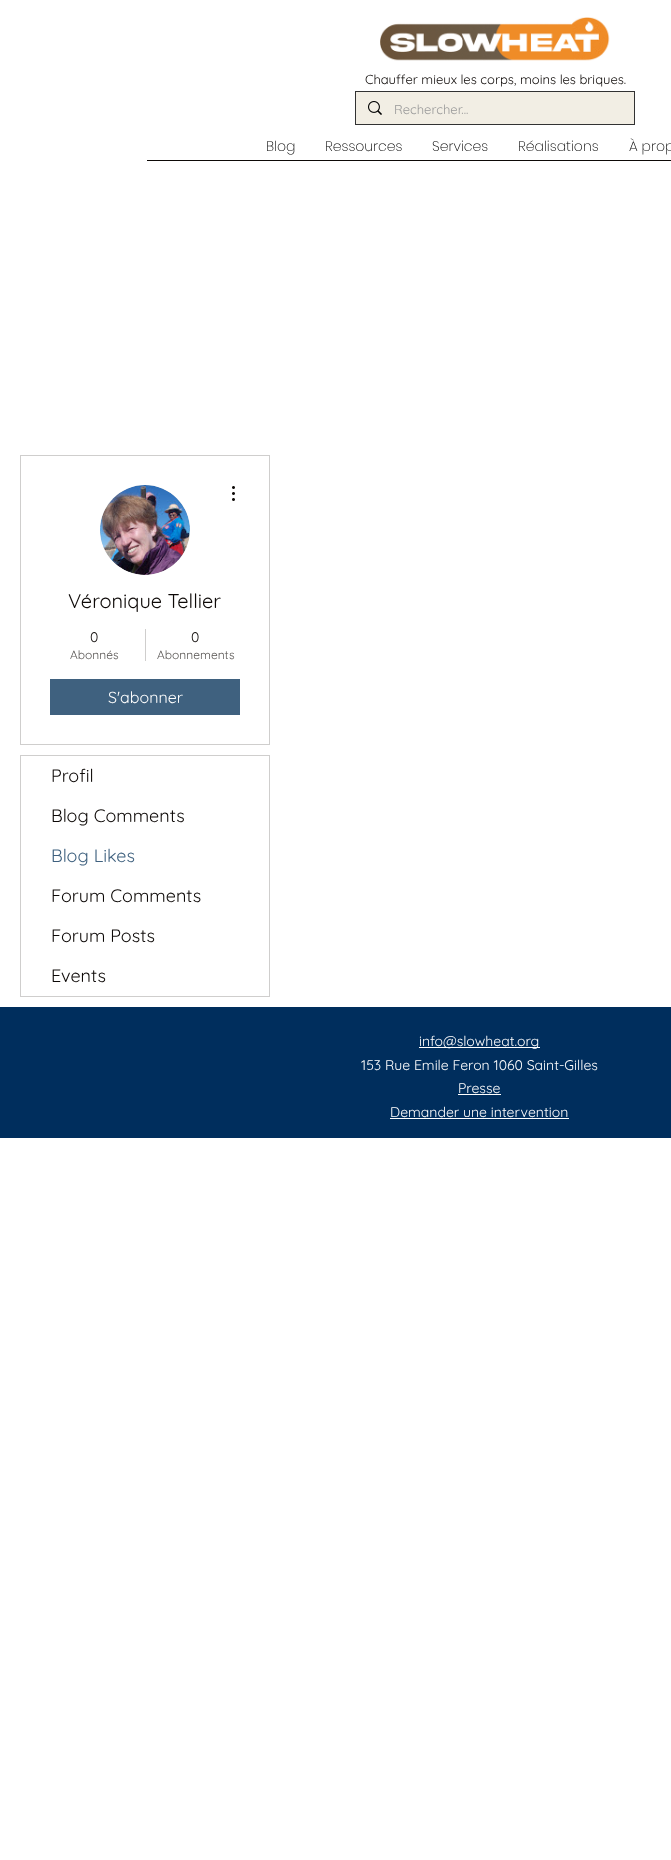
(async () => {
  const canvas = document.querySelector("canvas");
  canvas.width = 671;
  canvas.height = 1860;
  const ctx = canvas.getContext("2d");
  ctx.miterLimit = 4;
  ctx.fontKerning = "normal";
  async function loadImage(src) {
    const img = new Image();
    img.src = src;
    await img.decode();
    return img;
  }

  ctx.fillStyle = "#ffffff";
  ctx.fillRect(0, 0, 671, 1860);
  ctx.drawImage(await loadImage("img/1.png"), 380, 17, 230, 44);
  ctx.strokeStyle = "#323232";
  ctx.strokeRect(355.5, 91.5, 279, 33);
  ctx.fillStyle = "#f2eee4";
  ctx.fillRect(356, 92, 278, 32);
  ctx.drawImage(await loadImage("img/2.png"), 368, 101, 14, 14);
  ctx.fillStyle = "#0d0907";
  ctx.fillRect(147, 160, 524, 1);
  ctx.strokeStyle = "#cfcecd";
  ctx.strokeRect(20.5, 455.5, 249, 289);
  ctx.fillStyle = "#d8d8d8";
  ctx.beginPath();
  ctx.arc(145, 530, 45, 0, Math.PI * 2);
  ctx.fill();
  ctx.drawImage(await loadImage("img/3.png"), 100, 485, 90, 90);
  ctx.drawImage(await loadImage("img/4.png"), 232, 486, 3, 15);
  ctx.fillStyle = "#cfcecd";
  ctx.fillRect(145, 629, 1, 32);
  ctx.fillStyle = "#3f617f";
  ctx.fillRect(50, 679, 190, 36);
  ctx.strokeRect(20.5, 755.5, 249, 241);
  for (const [x, y, w, h, color] of [
    [0, 1007, 671, 131, "#002e5d"],
    [419, 1047, 121, 1, "#ffffff"],
    [458, 1094, 43, 1, "#ffffff"],
    [390, 1118, 179, 1, "#ffffff"],
  ]) {
    ctx.fillStyle = color;
    ctx.fillRect(x, y, w, h);
  }
  ctx.font = "13px Quicksand";
  ctx.fillStyle = "#0d0907";
  ctx.fillText("Chauffer mieux les corps, moins les briques.", 365, 84);
  ctx.fillStyle = "#999999";
  ctx.fillText("Rechercher...", 394, 114);
  ctx.font = "200 14px Poppins";
  ctx.fillStyle = "#000000";
  for (const [text, x, y] of [
    ["Blog", 266, 151],
    ["Ressources", 325, 151],
    ["Services", 432, 151],
    ["Réalisations", 518, 151],
    ["À prop", 629, 151],
  ]) {
    ctx.fillText(text, x, y);
  }
  ctx.font = "20px Quicksand";
  ctx.fillStyle = "#0d0907";
  ctx.fillText("Véronique Tellier", 68, 608);
  ctx.font = "14px Quicksand";
  ctx.fillText("0", 90, 642);
  ctx.font = "12px Quicksand";
  ctx.fillStyle = "#565351";
  ctx.fillText("Abonnés", 70, 659);
  ctx.font = "14px Quicksand";
  ctx.fillStyle = "#0d0907";
  ctx.fillText("0", 191, 642);
  ctx.font = "12px Quicksand";
  ctx.fillStyle = "#565351";
  ctx.fillText("Abonnements", 157, 659);
  ctx.font = "16px Quicksand";
  ctx.fillStyle = "#ffffff";
  ctx.fillText("S'abonner", 108, 703);
  ctx.font = "18px Quicksand";
  ctx.fillStyle = "#0d0907";
  ctx.fillText("Profil", 51, 782);
  ctx.fillText("Blog Comments", 51, 822);
  ctx.fillStyle = "#3f617f";
  ctx.fillText("Blog Likes", 51, 862);
  ctx.fillStyle = "#0d0907";
  for (const [text, x, y] of [
    ["Forum Comments", 51, 902],
    ["Forum Posts", 51, 942],
    ["Events", 51, 982],
  ]) {
    ctx.fillText(text, x, y);
  }
  ctx.font = "14px Quicksand";
  ctx.fillStyle = "#ffffff";
  for (const [text, x, y] of [
    ["info@slowheat.org", 419, 1046],
    ["153 Rue Emile Feron 1060 Saint-Gilles", 361, 1070],
    ["Presse", 458, 1093],
    ["Demander une intervention", 390, 1117],
  ]) {
    ctx.fillText(text, x, y);
  }
})();
